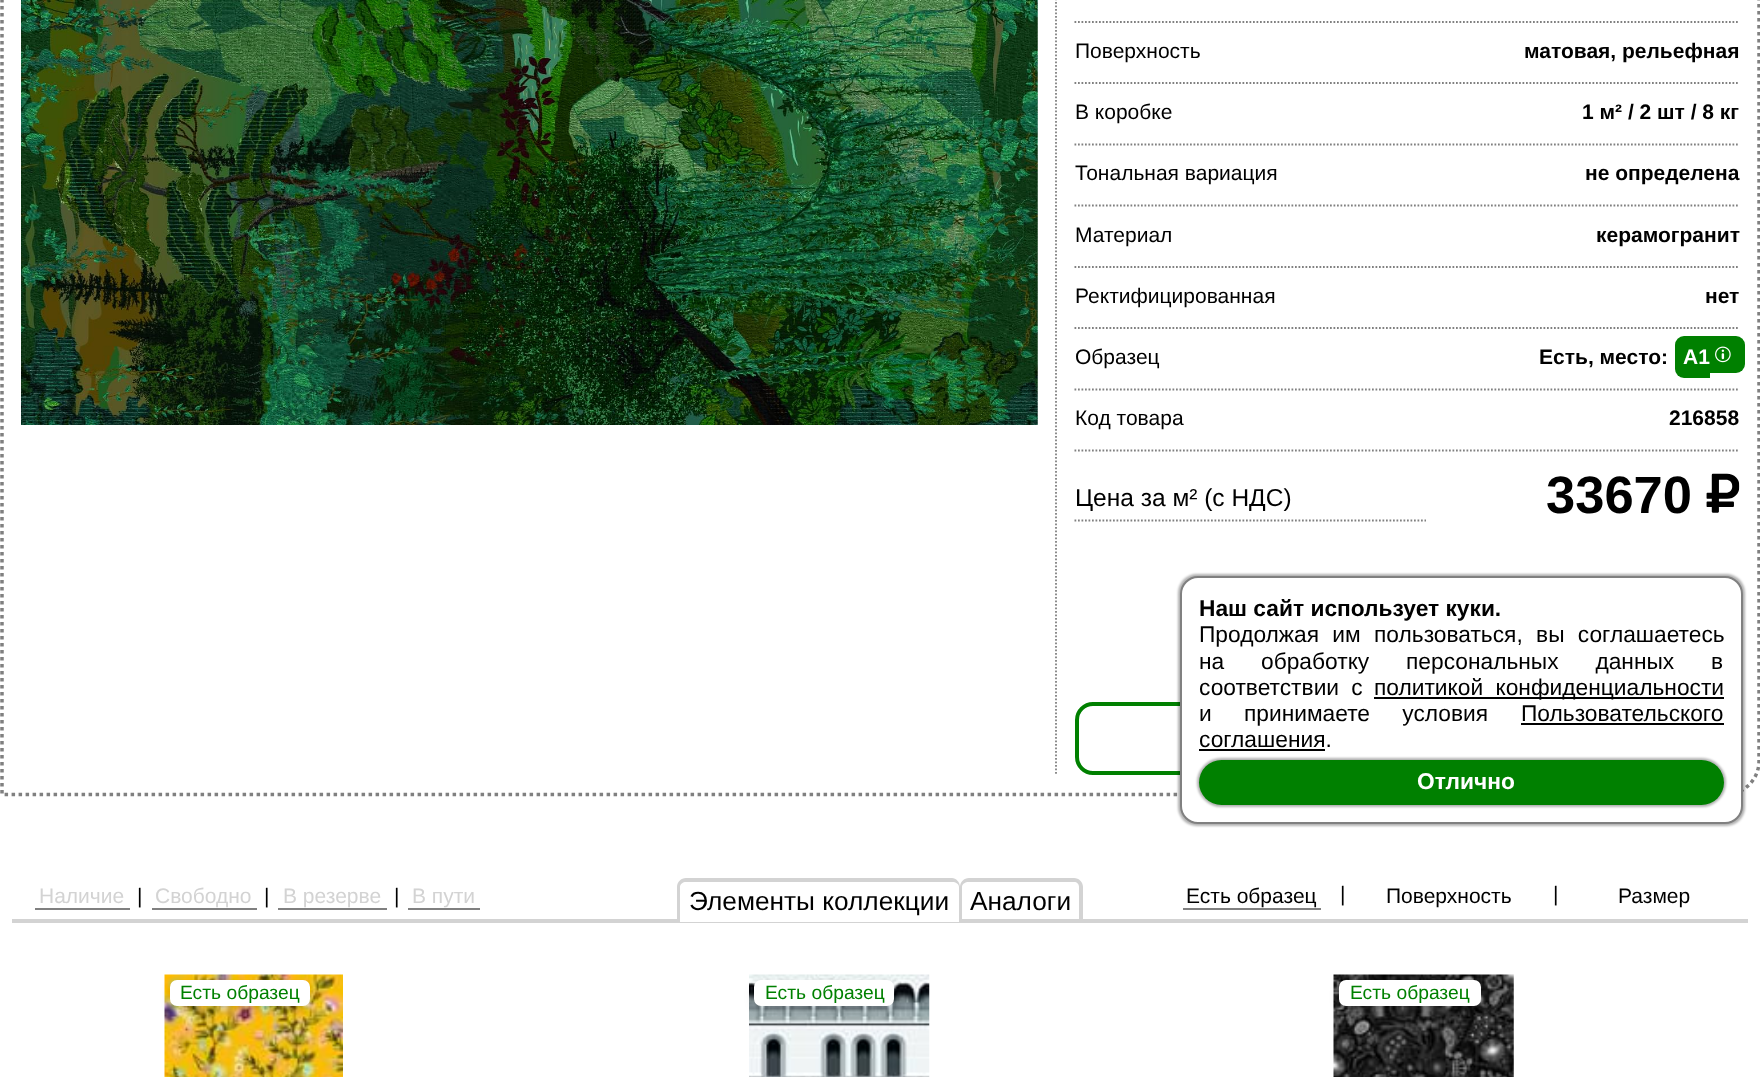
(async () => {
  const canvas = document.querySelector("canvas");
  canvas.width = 1760;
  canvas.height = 1077;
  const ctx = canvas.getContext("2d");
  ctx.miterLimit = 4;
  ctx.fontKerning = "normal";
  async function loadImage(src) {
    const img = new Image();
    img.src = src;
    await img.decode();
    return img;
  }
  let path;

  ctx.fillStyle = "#ffffff";
  ctx.fillRect(0, 0, 1760, 1077);
  path = new Path2D("M2-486.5H1725.5C1744-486.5 1759-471.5 1759-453V761C1759 779.5 1744 794.5 1725.5 794.5H2Z");
  ctx.strokeStyle = "#808080";
  ctx.lineWidth = 3.5;
  ctx.setLineDash([3.5, 3.5]);
  ctx.stroke(path);
  ctx.drawImage(await loadImage("img/1.png"), 21, 0, 1017, 425);
  path = new Path2D("M1056-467V775");
  ctx.lineWidth = 1.8;
  ctx.setLineDash([1.75, 1.75]);
  ctx.stroke(path);
  path = new Path2D("M1074.5 22H1739.5");
  ctx.stroke(path);
  path = new Path2D("M1074.5 83H1739.5");
  ctx.stroke(path);
  path = new Path2D("M1074.5 144.5H1739.5");
  ctx.stroke(path);
  path = new Path2D("M1074.5 205.5H1739.5");
  ctx.stroke(path);
  path = new Path2D("M1074.5 267H1739.5");
  ctx.stroke(path);
  path = new Path2D("M1074.5 328H1739.5");
  ctx.stroke(path);
  path = new Path2D("M1074.5 389.5H1739.5");
  ctx.stroke(path);
  ctx.fillStyle = "#008000";
  ctx.beginPath();
  ctx.roundRect(1675, 336, 35, 42, [9, 0, 0, 9]);
  ctx.fill();
  ctx.beginPath();
  ctx.roundRect(1710, 336, 35, 37, [0, 9, 9, 0]);
  ctx.fill();
  ctx.drawImage(await loadImage("img/2.png"), 1715, 346, 16, 17);
  path = new Path2D("M1074.5 450.5H1739.5");
  ctx.stroke(path);
  path = new Path2D("M1074.5 520.5H1426");
  ctx.stroke(path);
  ctx.drawImage(await loadImage("img/3.png"), 1706, 473, 34, 40);
  ctx.beginPath();
  ctx.roundRect(1077, 704, 661, 69, 16);
  ctx.strokeStyle = "#008000";
  ctx.lineWidth = 4;
  ctx.setLineDash([]);
  ctx.stroke();
  for (const [x, y, w, h, color] of [
    [12, 919, 1736, 4, "#d3d3d3"],
    [35, 908, 95, 2, "#808080"],
    [152, 908, 105, 2, "#808080"],
    [278, 908, 109, 2, "#808080"],
    [408, 908, 72, 2, "#808080"],
  ]) {
    ctx.fillStyle = color;
    ctx.fillRect(x, y, w, h);
  }
  ctx.fillStyle = "#ffffff";
  ctx.beginPath();
  ctx.roundRect(677, 879, 284, 43, [9, 9, 0, 0]);
  ctx.fill();
  ctx.fillStyle = "#d3d3d3";
  path = new Path2D("M686 878H952C956 878 960 882 960 887V922H677V887C677 882 681 878 686 878ZM686 882H952C956 882 959 884 959 887V922H680V887C680 884 683 882 686 882Z");
  ctx.fill(path, "evenodd");
  path = new Path2D("M969 878H1074C1079 878 1083 882 1083 887V922H960V887C960 882 964 878 969 878ZM969 882H1074C1077 882 1079 884 1079 887V922H962V887C962 884 965 882 969 882Z");
  ctx.fill(path, "evenodd");
  ctx.fillStyle = "#808080";
  ctx.fillRect(1183, 908, 138, 2);
  ctx.drawImage(await loadImage("img/4.png"), 164, 974, 179, 103);
  ctx.fillStyle = "rgba(0, 0, 0, 0.15)";
  ctx.filter = "blur(5px)";
  ctx.beginPath();
  ctx.roundRect(170, 984, 140, 26, 7);
  ctx.fill();
  ctx.filter = "none";
  ctx.fillStyle = "#ffffff";
  ctx.beginPath();
  ctx.roundRect(170, 980, 140, 26, 7);
  ctx.fill();
  ctx.drawImage(await loadImage("img/5.png"), 749, 974, 181, 103);
  ctx.fillStyle = "rgba(0, 0, 0, 0.15)";
  ctx.filter = "blur(5px)";
  ctx.beginPath();
  ctx.roundRect(754, 984, 140, 26, 7);
  ctx.fill();
  ctx.filter = "none";
  ctx.fillStyle = "#ffffff";
  ctx.beginPath();
  ctx.roundRect(754, 980, 140, 26, 7);
  ctx.fill();
  ctx.drawImage(await loadImage("img/6.png"), 1333, 974, 181, 103);
  ctx.fillStyle = "rgba(0, 0, 0, 0.15)";
  ctx.filter = "blur(5px)";
  ctx.beginPath();
  ctx.roundRect(1339, 984, 142, 26, 7);
  ctx.fill();
  ctx.filter = "none";
  ctx.fillStyle = "#ffffff";
  ctx.beginPath();
  ctx.roundRect(1339, 980, 142, 26, 7);
  ctx.fill();
  ctx.fillStyle = "rgba(0, 0, 0, 0.3)";
  ctx.filter = "blur(1px)";
  ctx.beginPath();
  ctx.roundRect(1178, 574, 567, 252, 19);
  ctx.fill();
  ctx.filter = "none";
  ctx.fillStyle = "#ffffff";
  ctx.beginPath();
  ctx.roundRect(1181, 577, 561, 246, 17);
  ctx.fill();
  ctx.strokeStyle = "#808080";
  ctx.lineWidth = 2;
  ctx.stroke();
  for (const [x, y, w, h, color] of [
    [1374, 697, 350, 2, "#000000"],
    [1521, 723, 203, 2, "#000000"],
    [1199, 749, 126, 2, "#000000"],
  ]) {
    ctx.fillStyle = color;
    ctx.fillRect(x, y, w, h);
  }
  ctx.fillStyle = "rgba(0, 0, 0, 0.3)";
  ctx.filter = "blur(1px)";
  ctx.beginPath();
  ctx.roundRect(1197, 758, 529, 49, 24.5);
  ctx.fill();
  ctx.filter = "none";
  ctx.fillStyle = "#008000";
  ctx.beginPath();
  ctx.roundRect(1199, 760, 525, 45, 22.5);
  ctx.fill();
  ctx.font = "21px Liberation Sans";
  ctx.fillStyle = "#000000";
  ctx.fillText("Поверхность", 1075, 58);
  ctx.font = "bold 21px Liberation Sans";
  ctx.fillText("матовая, рельефная", 1524, 58);
  ctx.font = "21px Liberation Sans";
  ctx.fillText("В коробке", 1075, 119);
  ctx.font = "bold 21px Liberation Sans";
  ctx.fillText("1 м² / 2 шт / 8 кг", 1582, 119);
  ctx.font = "21px Liberation Sans";
  ctx.fillText("Тональная вариация", 1075, 180);
  ctx.font = "bold 21px Liberation Sans";
  ctx.fillText("не определена", 1585, 180);
  ctx.font = "21px Liberation Sans";
  ctx.fillText("Материал", 1075, 242);
  ctx.font = "bold 21px Liberation Sans";
  ctx.fillText("керамогранит", 1596, 242);
  ctx.font = "21px Liberation Sans";
  ctx.fillText("Ректифицированная", 1075, 303);
  ctx.font = "bold 21px Liberation Sans";
  ctx.fillText("нет", 1705, 303);
  ctx.font = "21px Liberation Sans";
  ctx.fillText("Образец", 1075, 364);
  ctx.font = "bold 21px Liberation Sans";
  ctx.fillText("Есть, место:", 1539, 364);
  ctx.fillStyle = "#ffffff";
  ctx.fillText("A1", 1683, 364);
  ctx.font = "21px Liberation Sans";
  ctx.fillStyle = "#000000";
  ctx.fillText("Код товара", 1075, 425);
  ctx.font = "bold 21px Liberation Sans";
  ctx.fillText("216858", 1669, 425);
  ctx.font = "24.5px Liberation Sans";
  ctx.fillText("Цена за м² (с НДС)", 1075, 506);
  ctx.font = "bold 52.5px Liberation Sans";
  ctx.fillText("33670", 1546, 513);
  ctx.font = "21px Liberation Sans";
  ctx.fillStyle = "#d3d3d3";
  ctx.fillText("Наличие", 39, 903);
  ctx.fillStyle = "#000000";
  ctx.fillText("|", 137, 903);
  ctx.fillStyle = "#d3d3d3";
  ctx.fillText("Свободно", 155, 903);
  ctx.fillStyle = "#000000";
  ctx.fillText("|", 264, 903);
  ctx.fillStyle = "#d3d3d3";
  ctx.fillText("В резерве", 283, 903);
  ctx.fillStyle = "#000000";
  ctx.fillText("|", 394, 903);
  ctx.fillStyle = "#d3d3d3";
  ctx.fillText("В пути", 412, 903);
  ctx.font = "26.25px Liberation Sans";
  ctx.fillStyle = "#000000";
  ctx.fillText("Элементы коллекции", 689, 910);
  ctx.fillText("Аналоги", 970, 910);
  ctx.font = "21px Liberation Sans";
  for (const [text, x, y] of [
    ["Есть образец", 1186, 903],
    ["|", 1340, 901],
    ["Поверхность", 1386, 903],
    ["|", 1553, 901],
    ["Размер", 1618, 903],
  ]) {
    ctx.fillText(text, x, y);
  }
  ctx.font = "19.25px Liberation Sans";
  ctx.fillStyle = "#008000";
  for (const [text, x, y] of [
    ["Есть образец", 180, 999],
    ["Есть образец", 765, 999],
    ["Есть образец", 1350, 999],
  ]) {
    ctx.fillText(text, x, y);
  }
  ctx.font = "bold 22.75px Liberation Sans";
  ctx.fillStyle = "#000000";
  ctx.fillText("Наш сайт использует куки.", 1199, 616);
  ctx.wordSpacing = "7px";
  ctx.font = "22.75px Liberation Sans";
  ctx.fillText("Продолжая им пользоваться, вы соглашаетесь", 1199, 642);
  ctx.wordSpacing = "30.5px";
  ctx.fillText("на обработку персональных данных в", 1199, 669);
  ctx.wordSpacing = "6px";
  ctx.fillText("соответствии с", 1199, 695);
  ctx.fillText("политикой конфиденциальности", 1374, 695);
  ctx.wordSpacing = "26px";
  ctx.fillText("и принимаете условия", 1199, 721);
  ctx.wordSpacing = "0px";
  ctx.fillText("Пользовательского", 1521, 721);
  ctx.fillText("соглашения.", 1199, 747);
  ctx.font = "bold 22.75px Liberation Sans";
  ctx.fillStyle = "#ffffff";
  ctx.fillText("Отлично", 1417, 789);
})();
